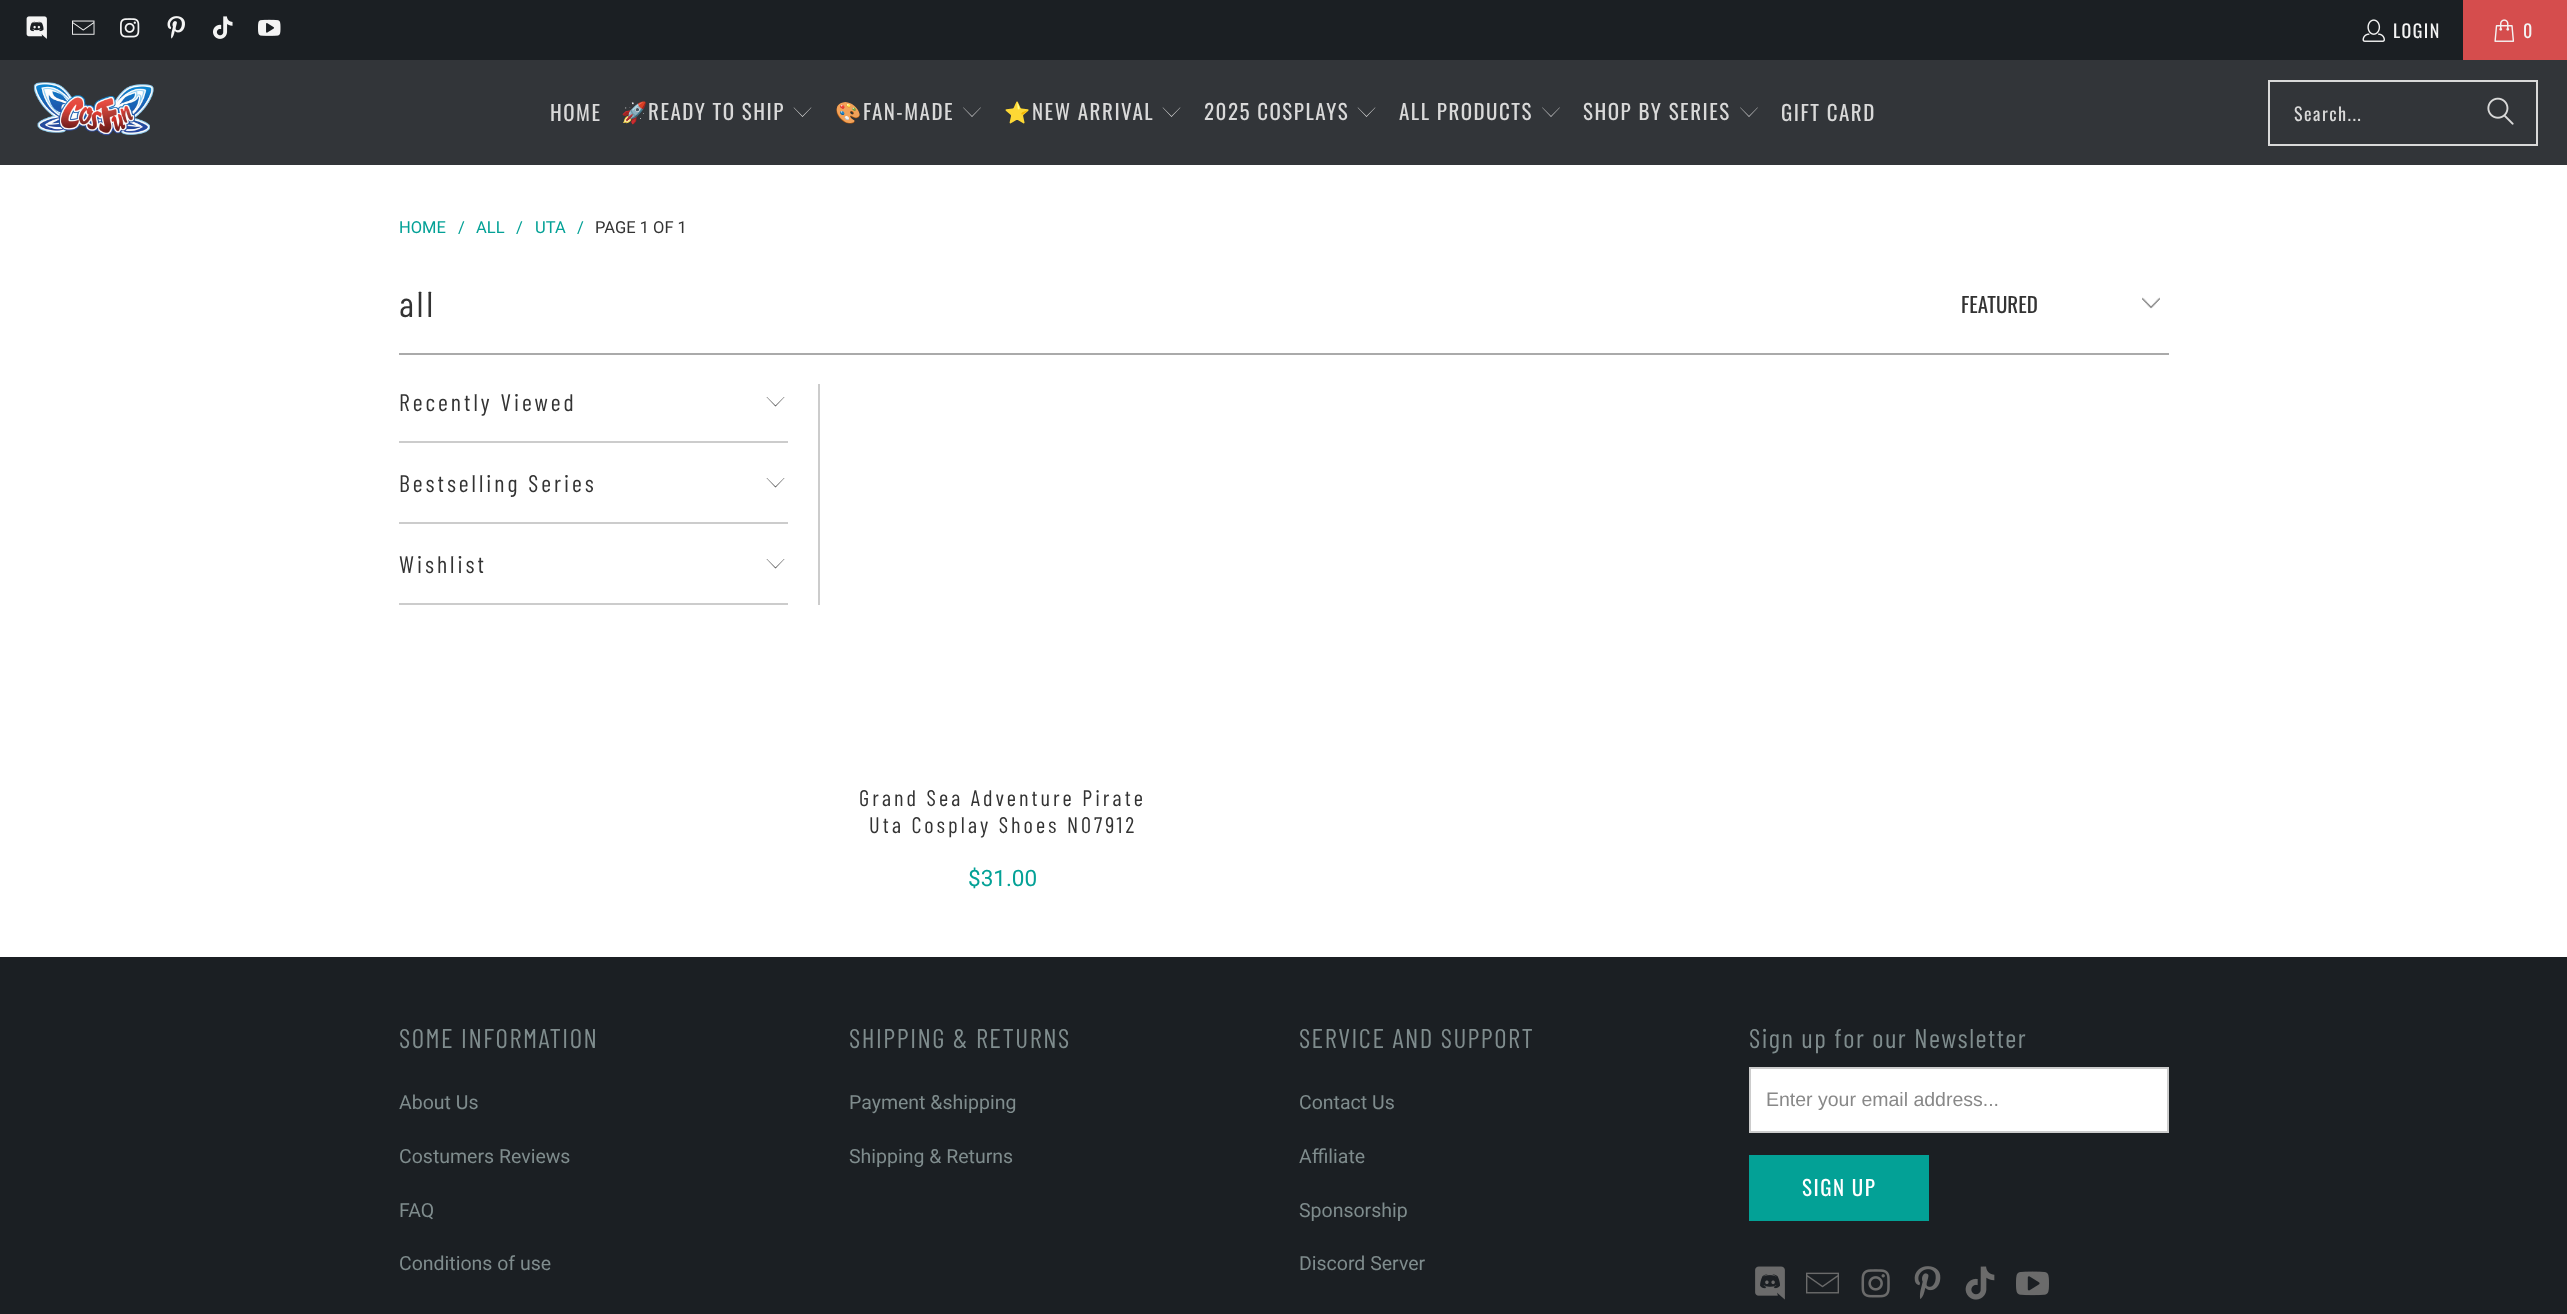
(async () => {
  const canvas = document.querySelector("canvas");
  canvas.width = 2567;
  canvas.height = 1314;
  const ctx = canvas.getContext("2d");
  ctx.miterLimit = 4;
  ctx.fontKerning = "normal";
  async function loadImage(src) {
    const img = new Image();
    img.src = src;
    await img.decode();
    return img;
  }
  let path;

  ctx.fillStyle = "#ffffff";
  ctx.fillRect(0, 0, 2567, 1314);
  ctx.fillStyle = "#1b1f23";
  ctx.fillRect(0, 0, 2463, 60);
  ctx.drawImage(await loadImage("img/1.png"), 26, 16, 21, 23);
  ctx.drawImage(await loadImage("img/2.png"), 72, 20, 23, 15);
  ctx.drawImage(await loadImage("img/3.png"), 120, 18, 20, 20);
  ctx.drawImage(await loadImage("img/4.png"), 167, 16, 18, 23);
  ctx.drawImage(await loadImage("img/5.png"), 213, 16, 20, 23);
  ctx.drawImage(await loadImage("img/6.png"), 258, 19, 23, 17);
  ctx.drawImage(await loadImage("img/7.png"), 2362, 19, 23, 23);
  ctx.fillStyle = "#d54d4d";
  ctx.fillRect(2463, 0, 104, 60);
  ctx.drawImage(await loadImage("img/8.png"), 2494, 19, 21, 23);
  ctx.fillStyle = "#323539";
  ctx.fillRect(0, 60, 2567, 105);
  ctx.drawImage(await loadImage("img/9.png"), 33, 82, 121, 54);
  ctx.fillStyle = "#d9d9d9";
  path = new Path2D("M802.5 117L793.5 107.5H794L802.5 116L811 107.5H811.5Z");
  ctx.fill(path);
  path = new Path2D("M972 117L963 107.5H963.5L972 116L980.5 107.5H981Z");
  ctx.fill(path);
  path = new Path2D("M1171.5 117L1162.5 107.5H1163L1171.5 116L1180 107.5H1180.5Z");
  ctx.fill(path);
  path = new Path2D("M1366.5 117L1357.5 107.5H1358L1366.5 116L1375 107.5H1375.5Z");
  ctx.fill(path);
  path = new Path2D("M1551 117L1542 107.5H1542.5L1551 116L1559.5 107.5H1560Z");
  ctx.fill(path);
  path = new Path2D("M1749 117L1740 107.5H1740.5L1749 116L1757.5 107.5H1758Z");
  ctx.fill(path);
  ctx.strokeStyle = "#d9d9d9";
  ctx.lineWidth = 2;
  ctx.strokeRect(2269, 81, 268, 64);
  ctx.drawImage(await loadImage("img/10.png"), 2487, 97, 27, 28);
  ctx.drawImage(await loadImage("img/11.png"), 2142, 297, 18, 12);
  ctx.fillStyle = "#aaaaaa";
  ctx.fillRect(399, 353, 1770, 2);
  ctx.fillStyle = "#cccccc";
  ctx.fillRect(818, 384, 2, 221);
  ctx.fillStyle = "#333333";
  path = new Path2D("M775.5 406.5L766.5 397H767L775.5 405.5L784 397H784.5Z");
  ctx.fill(path);
  ctx.fillStyle = "#cccccc";
  ctx.fillRect(399, 441, 389, 2);
  ctx.fillStyle = "#333333";
  path = new Path2D("M775.5 487.5L766.5 478H767L775.5 486.5L784 478H784.5Z");
  ctx.fill(path);
  ctx.fillStyle = "#cccccc";
  ctx.fillRect(399, 522, 389, 2);
  ctx.fillStyle = "#333333";
  path = new Path2D("M775.5 568.5L766.5 559H767L775.5 567.5L784 559H784.5Z");
  ctx.fill(path);
  ctx.fillStyle = "#cccccc";
  ctx.fillRect(399, 603, 389, 2);
  ctx.fillStyle = "#1b1f23";
  ctx.fillRect(0, 957, 2567, 357);
  ctx.fillStyle = "#ffffff";
  ctx.beginPath();
  ctx.rect(1750, 1068, 418, 64);
  ctx.fill();
  ctx.strokeStyle = "#cccccc";
  ctx.stroke();
  ctx.fillStyle = "#03a196";
  ctx.fillRect(1749, 1155, 180, 66);
  ctx.drawImage(await loadImage("img/12.png"), 1755, 1266, 30, 34);
  ctx.drawImage(await loadImage("img/13.png"), 1806, 1272, 33, 22);
  ctx.drawImage(await loadImage("img/14.png"), 1861, 1269, 29, 29);
  ctx.drawImage(await loadImage("img/15.png"), 1914, 1266, 27, 33);
  ctx.drawImage(await loadImage("img/16.png"), 1965, 1266, 30, 34);
  ctx.drawImage(await loadImage("img/17.png"), 2016, 1271, 33, 25);
  ctx.letterSpacing = "1.5px";
  ctx.font = "18px Oswald";
  ctx.fillStyle = "#f4f4f4";
  ctx.fillText("LOGIN", 2393, 38);
  ctx.fillText("0", 2523, 38);
  ctx.font = "21px Oswald";
  ctx.fillStyle = "#d9d9d9";
  ctx.fillText("HOME", 550, 121);
  ctx.font = "21px Noto Color Emoji";
  ctx.fillText("🚀", 621, 120);
  ctx.font = "21px Oswald";
  ctx.fillText("READY TO SHIP", 648, 120);
  ctx.font = "21px Noto Color Emoji";
  ctx.fillText("🎨", 835, 120);
  ctx.font = "21px Oswald";
  ctx.fillText("FAN-MADE", 863, 120);
  ctx.font = "21px Noto Color Emoji";
  ctx.fillText("⭐", 1004, 120);
  ctx.font = "21px Oswald";
  for (const [text, x, y] of [
    ["NEW ARRIVAL", 1032, 120],
    ["2025 COSPLAYS", 1204, 120],
    ["ALL PRODUCTS", 1399, 120],
    ["SHOP BY SERIES", 1583, 120],
    ["GIFT CARD", 1781, 121],
  ]) {
    ctx.fillText(text, x, y);
  }
  ctx.font = "18px Oswald";
  ctx.fillText("Search...", 2294, 121);
  ctx.letterSpacing = "0px";
  ctx.font = "16.5px Roboto";
  ctx.fillStyle = "#03a196";
  for (const [text, x, y] of [
    ["HOME", 399, 233],
    ["/", 458, 233],
    ["ALL", 476, 233],
    ["/", 516, 233],
    ["UTA", 535, 233],
    ["/", 577, 233],
  ]) {
    ctx.fillText(text, x, y);
  }
  ctx.fillStyle = "#333333";
  ctx.fillText("PAGE 1 OF 1", 595, 233);
  ctx.letterSpacing = "3px";
  ctx.font = "36px Barlow Condensed";
  ctx.fillText("all", 399, 317);
  ctx.letterSpacing = "0px";
  ctx.font = "21px Oswald";
  ctx.fillText("FEATURED", 1961, 313);
  ctx.letterSpacing = "3px";
  ctx.font = "24px Barlow Condensed";
  for (const [text, x, y] of [
    ["Recently Viewed", 399, 411],
    ["Bestselling Series", 399, 492],
    ["Wishlist", 399, 573],
  ]) {
    ctx.fillText(text, x, y);
  }
  ctx.font = "22.5px Barlow Condensed";
  ctx.fillText("Grand Sea Adventure Pirate", 859, 806);
  ctx.fillText("Uta Cosplay Shoes N07912", 869, 833);
  ctx.letterSpacing = "0px";
  ctx.font = "22.5px Roboto";
  ctx.fillStyle = "#03a196";
  ctx.fillText("$31.00", 968, 886);
  ctx.letterSpacing = "1.5px";
  ctx.font = "27px Barlow Condensed";
  ctx.fillStyle = "#7f8c8d";
  ctx.fillText("SOME INFORMATION", 399, 1048);
  ctx.letterSpacing = "0px";
  ctx.font = "19.5px Roboto";
  for (const [text, x, y] of [
    ["About Us", 399, 1109],
    ["Costumers Reviews", 399, 1163],
    ["FAQ", 399, 1217],
    ["Conditions of use", 399, 1270],
  ]) {
    ctx.fillText(text, x, y);
  }
  ctx.letterSpacing = "1.5px";
  ctx.font = "27px Barlow Condensed";
  ctx.fillText("SHIPPING & RETURNS", 849, 1048);
  ctx.letterSpacing = "0px";
  ctx.font = "19.5px Roboto";
  ctx.fillText("Payment &shipping", 849, 1109);
  ctx.fillText("Shipping & Returns", 849, 1163);
  ctx.letterSpacing = "1.5px";
  ctx.font = "27px Barlow Condensed";
  ctx.fillText("SERVICE AND SUPPORT", 1299, 1048);
  ctx.letterSpacing = "0px";
  ctx.font = "19.5px Roboto";
  for (const [text, x, y] of [
    ["Contact Us", 1299, 1109],
    ["Affiliate", 1299, 1163],
    ["Sponsorship", 1299, 1217],
    ["Discord Server", 1299, 1270],
  ]) {
    ctx.fillText(text, x, y);
  }
  ctx.letterSpacing = "1.5px";
  ctx.font = "27px Barlow Condensed";
  ctx.fillText("Sign up for our Newsletter", 1749, 1048);
  ctx.letterSpacing = "0px";
  ctx.font = "19.5px Liberation Sans";
  ctx.fillStyle = "#888888";
  ctx.fillText("Enter your email address...", 1766, 1106);
  ctx.letterSpacing = "1.5px";
  ctx.font = "21px Oswald";
  ctx.fillStyle = "#ffffff";
  ctx.fillText("SIGN UP", 1802, 1196);
})();
